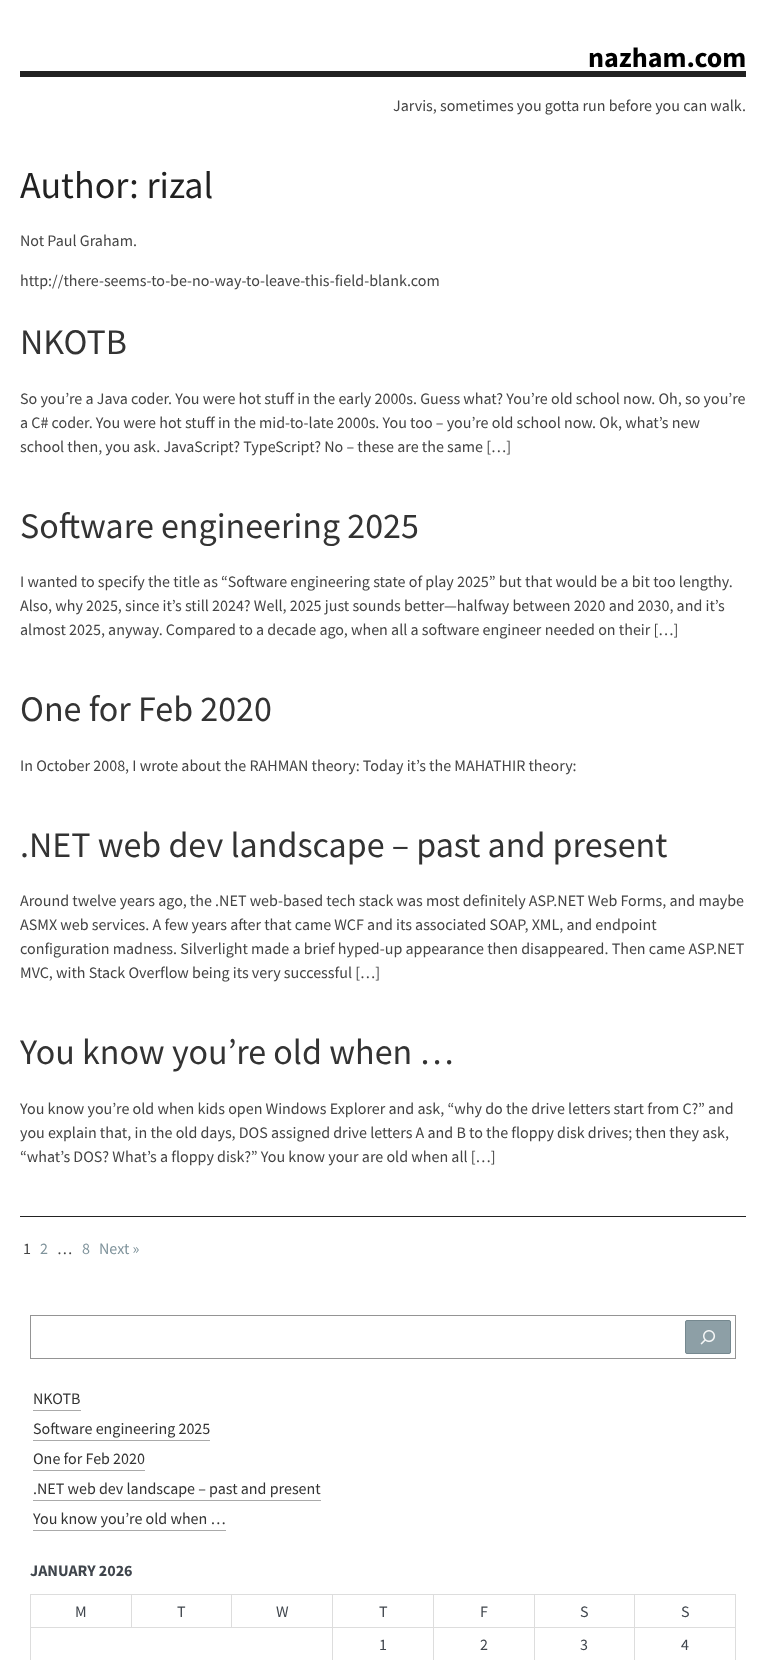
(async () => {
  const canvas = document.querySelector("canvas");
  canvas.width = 766;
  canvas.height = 1660;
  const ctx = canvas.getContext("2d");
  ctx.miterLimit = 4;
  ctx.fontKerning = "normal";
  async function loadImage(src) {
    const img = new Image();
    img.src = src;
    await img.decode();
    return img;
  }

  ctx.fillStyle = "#ffffff";
  ctx.fillRect(0, 0, 766, 1660);
  ctx.fillStyle = "#222222";
  ctx.fillRect(20, 71, 726, 6);
  ctx.fillRect(20, 1216, 726, 1);
  ctx.strokeStyle = "#949494";
  ctx.strokeRect(30.5, 1315.5, 705, 43);
  ctx.fillStyle = "#8d9fa6";
  ctx.beginPath();
  ctx.roundRect(685.5, 1320.5, 45, 33, 1.5);
  ctx.fill();
  ctx.strokeStyle = "#75888f";
  ctx.stroke();
  ctx.drawImage(await loadImage("img/1.png"), 700, 1330, 16, 15);
  for (const [x, y, w, h, color] of [
    [33, 1410, 48, 1, "#aaaaaa"],
    [33, 1440, 177, 1, "#aaaaaa"],
    [33, 1470, 112, 1, "#aaaaaa"],
    [33, 1500, 288, 1, "#aaaaaa"],
    [33, 1530, 193, 1, "#aaaaaa"],
    [30, 1594, 706, 1, "#dddddd"],
    [30, 1627, 706, 1, "#dddddd"],
    [30, 1627, 1, 33, "#dddddd"],
    [30, 1594, 1, 34, "#dddddd"],
    [131, 1594, 1, 34, "#dddddd"],
    [231, 1594, 1, 34, "#dddddd"],
    [332, 1594, 1, 66, "#dddddd"],
    [433, 1594, 1, 66, "#dddddd"],
    [534, 1594, 1, 66, "#dddddd"],
    [634, 1594, 1, 66, "#dddddd"],
    [735, 1594, 1, 66, "#dddddd"],
  ]) {
    ctx.fillStyle = color;
    ctx.fillRect(x, y, w, h);
  }
  ctx.font = "bold 28px Source Sans Pro";
  ctx.fillStyle = "#000000";
  ctx.fillText("nazham.com", 588, 67);
  ctx.font = "16px Source Sans Pro";
  ctx.fillStyle = "#444444";
  ctx.fillText("Jarvis, sometimes you gotta run before you can walk.", 393, 111);
  ctx.font = "38px Source Sans Pro";
  ctx.fillStyle = "#222222";
  ctx.fillText("Author: rizal", 20, 198);
  ctx.font = "16px Source Sans Pro";
  ctx.fillStyle = "#444444";
  ctx.fillText("Not Paul Graham.", 20, 246);
  ctx.fillText("http://there-seems-to-be-no-way-to-leave-this-field-blank.com", 20, 286);
  ctx.font = "36px Source Sans Pro";
  ctx.fillStyle = "#333333";
  ctx.fillText("NKOTB", 20, 354);
  ctx.font = "16px Source Sans Pro";
  ctx.fillStyle = "#444444";
  for (const [text, x, y] of [
    ["So you’re a Java coder. You were hot stuff in the early 2000s. Guess what? You’re old school now. Oh, so you’re", 20, 404],
    ["a C# coder. You were hot stuff in the mid-to-late 2000s. You too – you’re old school now. Ok, what’s new", 20, 428],
    ["school then, you ask. JavaScript? TypeScript? No – these are the same […]", 20, 452],
  ]) {
    ctx.fillText(text, x, y);
  }
  ctx.font = "36px Source Sans Pro";
  ctx.fillStyle = "#333333";
  ctx.fillText("Software engineering 2025", 20, 538);
  ctx.font = "16px Source Sans Pro";
  ctx.fillStyle = "#444444";
  for (const [text, x, y] of [
    ["I wanted to specify the title as “Software engineering state of play 2025” but that would be a bit too lengthy.", 20, 587],
    ["Also, why 2025, since it’s still 2024? Well, 2025 just sounds better—halfway between 2020 and 2030, and it’s", 20, 611],
    ["almost 2025, anyway. Compared to a decade ago, when all a software engineer needed on their […]", 20, 635],
  ]) {
    ctx.fillText(text, x, y);
  }
  ctx.font = "36px Source Sans Pro";
  ctx.fillStyle = "#333333";
  ctx.fillText("One for Feb 2020", 20, 721);
  ctx.font = "16px Source Sans Pro";
  ctx.fillStyle = "#444444";
  ctx.fillText("In October 2008, I wrote about the RAHMAN theory: Today it’s the MAHATHIR theory:", 20, 771);
  ctx.font = "36px Source Sans Pro";
  ctx.fillStyle = "#333333";
  ctx.fillText(".NET web dev landscape – past and present", 20, 857);
  ctx.font = "16px Source Sans Pro";
  ctx.fillStyle = "#444444";
  for (const [text, x, y] of [
    ["Around twelve years ago, the .NET web-based tech stack was most definitely ASP.NET Web Forms, and maybe", 20, 906],
    ["ASMX web services. A few years after that came WCF and its associated SOAP, XML, and endpoint", 20, 930],
    ["configuration madness. Silverlight made a brief hyped-up appearance then disappeared. Then came ASP.NET", 20, 954],
    ["MVC, with Stack Overflow being its very successful […]", 20, 978],
  ]) {
    ctx.fillText(text, x, y);
  }
  ctx.font = "36px Source Sans Pro";
  ctx.fillStyle = "#333333";
  ctx.fillText("You know you’re old when …", 20, 1064);
  ctx.font = "16px Source Sans Pro";
  ctx.fillStyle = "#444444";
  for (const [text, x, y] of [
    ["You know you’re old when kids open Windows Explorer and ask, “why do the drive letters start from C?” and", 20, 1114],
    ["you explain that, in the old days, DOS assigned drive letters A and B to the floppy disk drives; then they ask,", 20, 1138],
    ["“what’s DOS? What’s a floppy disk?” You know your are old when all […]", 20, 1162],
    ["1", 23, 1254],
  ]) {
    ctx.fillText(text, x, y);
  }
  ctx.fillStyle = "#80949c";
  ctx.fillText("2", 40, 1254);
  ctx.fillStyle = "#444444";
  ctx.fillText("…", 57, 1254);
  ctx.fillStyle = "#80949c";
  ctx.fillText("8", 82, 1254);
  ctx.fillText("Next »", 99, 1254);
  ctx.fillStyle = "#333333";
  for (const [text, x, y] of [
    ["NKOTB", 33, 1404],
    ["Software engineering 2025", 33, 1434],
    ["One for Feb 2020", 33, 1464],
    [".NET web dev landscape – past and present", 33, 1494],
    ["You know you’re old when …", 33, 1524],
  ]) {
    ctx.fillText(text, x, y);
  }
  ctx.font = "bold 16px Source Sans Pro";
  ctx.fillStyle = "#40464d";
  ctx.fillText("JANUARY 2026", 30, 1576);
  ctx.font = "16px Source Sans Pro";
  for (const [text, x, y] of [
    ["M", 75, 1617],
    ["T", 177, 1617],
    ["W", 276, 1617],
    ["T", 379, 1617],
    ["F", 480, 1617],
    ["S", 580, 1617],
    ["S", 681, 1617],
    ["1", 379, 1650],
    ["2", 480, 1650],
    ["3", 580, 1650],
    ["4", 681, 1650],
  ]) {
    ctx.fillText(text, x, y);
  }
})();
